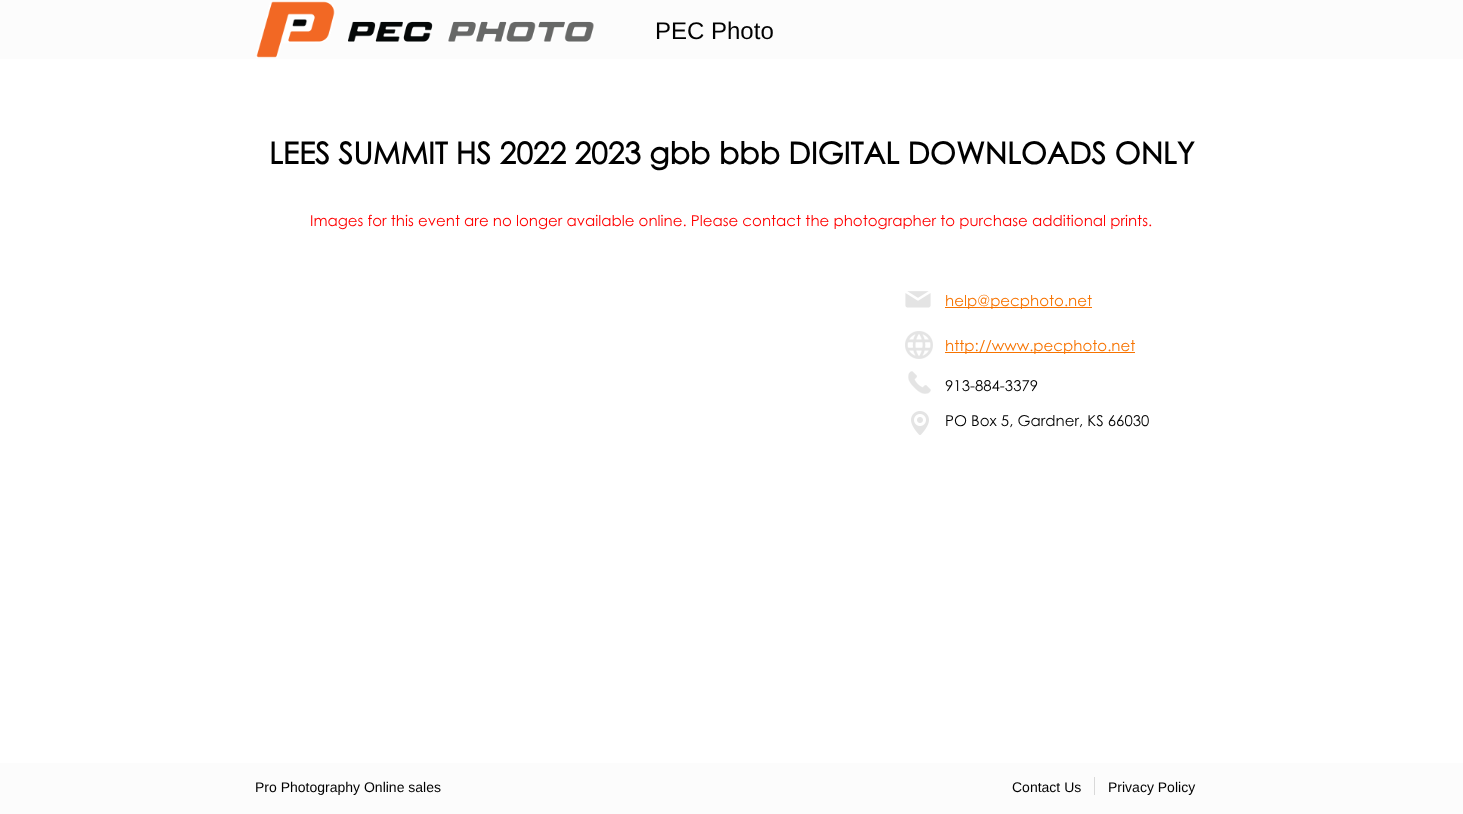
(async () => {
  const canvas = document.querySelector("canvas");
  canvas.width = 1463;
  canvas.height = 814;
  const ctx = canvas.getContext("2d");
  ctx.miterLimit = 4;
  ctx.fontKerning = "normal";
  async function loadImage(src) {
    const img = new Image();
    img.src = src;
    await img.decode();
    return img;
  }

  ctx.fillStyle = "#ffffff";
  ctx.fillRect(0, 0, 1463, 814);
  ctx.fillStyle = "#fcfcfc";
  ctx.fillRect(0, 0, 1463, 59);
  ctx.drawImage(await loadImage("img/1.png"), 256, 1, 338, 57);
  ctx.drawImage(await loadImage("img/2.png"), 905, 291, 26, 17);
  ctx.fillStyle = "#f77300";
  ctx.fillRect(945, 307, 147, 1);
  ctx.drawImage(await loadImage("img/3.png"), 905, 331, 28, 28);
  ctx.fillRect(945, 352, 190, 1);
  ctx.drawImage(await loadImage("img/4.png"), 908, 371, 23, 23);
  ctx.drawImage(await loadImage("img/5.png"), 911, 411, 18, 24);
  ctx.fillStyle = "#fcfcfc";
  ctx.fillRect(0, 763, 1463, 51);
  ctx.fillStyle = "#d9d9d9";
  ctx.fillRect(1094, 777, 1, 18);
  ctx.font = "24px Liberation Sans";
  ctx.fillStyle = "#000000";
  ctx.fillText("PEC Photo", 655, 39);
  ctx.font = "bold 30px Century Gothic";
  ctx.fillText("LEES SUMMIT HS 2022 2023 gbb bbb DIGITAL DOWNLOADS ONLY", 269, 164);
  ctx.font = "15px Century Gothic";
  ctx.fillStyle = "#ff0000";
  ctx.fillText("Images for this event are no longer available online. Please contact the photographer to purchase additional prints.", 310, 226);
  ctx.fillStyle = "#f77300";
  ctx.fillText("help@pecphoto.net", 945, 306);
  ctx.fillText("http://www.pecphoto.net", 945, 351);
  ctx.fillStyle = "#000000";
  ctx.fillText("913-884-3379", 945, 391);
  ctx.fillText("PO Box 5, Gardner, KS 66030", 945, 426);
  ctx.font = "14px Liberation Sans";
  for (const [text, x, y] of [
    ["Pro Photography Online sales", 255, 792],
    ["Contact Us", 1012, 792],
    ["Privacy Policy", 1108, 792],
  ]) {
    ctx.fillText(text, x, y);
  }
})();
